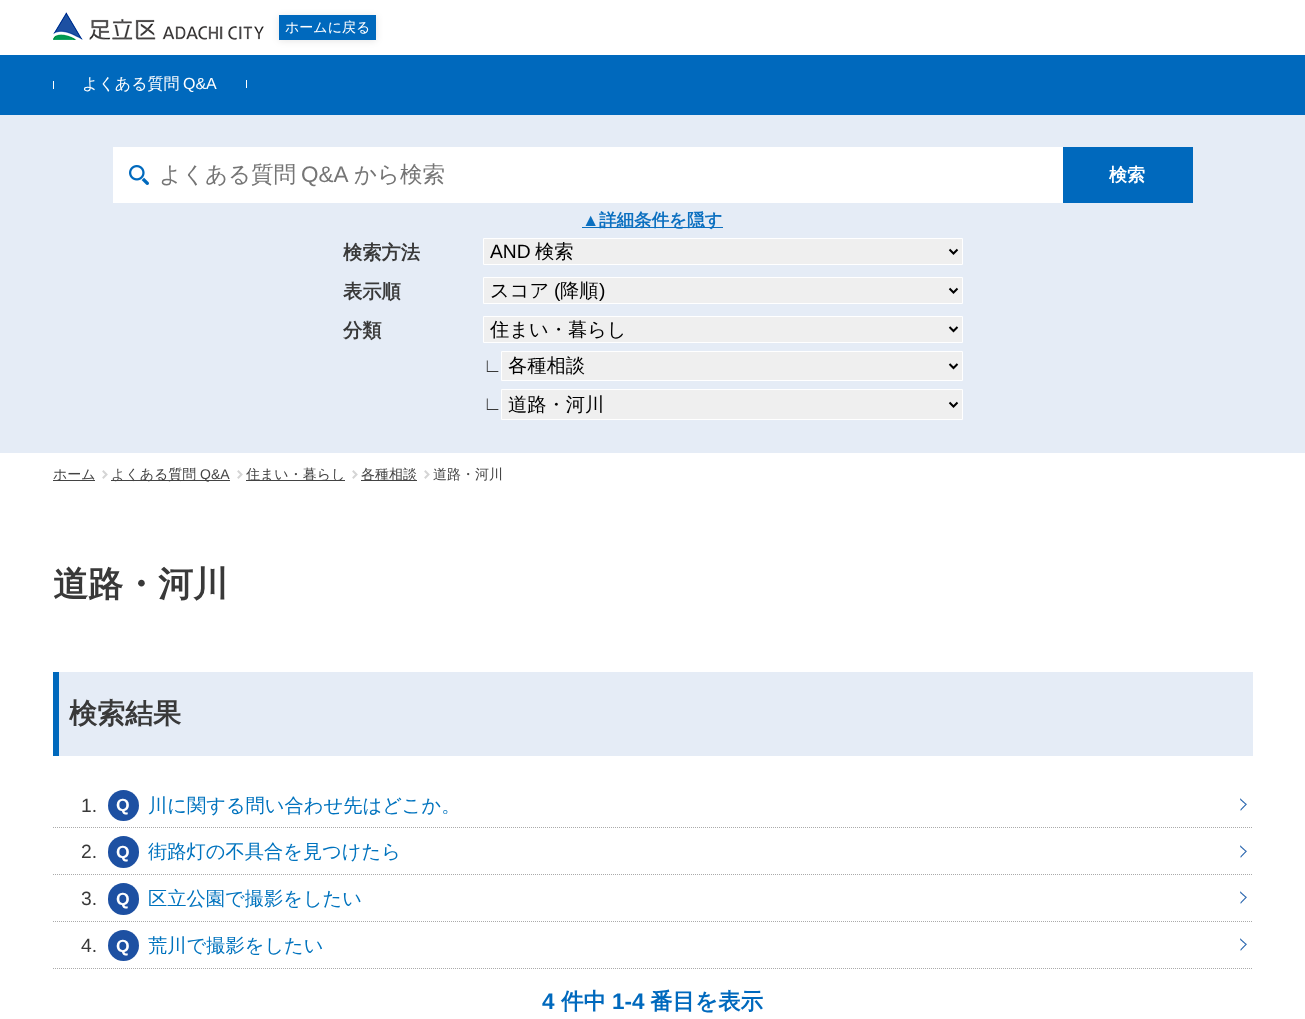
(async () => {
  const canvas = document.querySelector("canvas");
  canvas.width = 1305;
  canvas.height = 1019;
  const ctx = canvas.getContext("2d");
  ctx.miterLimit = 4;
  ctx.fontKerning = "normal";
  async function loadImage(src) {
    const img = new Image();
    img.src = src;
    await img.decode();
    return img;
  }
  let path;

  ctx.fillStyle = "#ffffff";
  ctx.fillRect(0, 0, 1305, 1019);
  ctx.drawImage(await loadImage("img/1.png"), 53, 12, 211, 28);
  ctx.fillStyle = "rgba(0, 0, 0, 0.1)";
  ctx.filter = "blur(3.5px)";
  ctx.beginPath();
  ctx.rect(279, 16, 97, 25);
  ctx.fill();
  ctx.filter = "none";
  for (const [x, y, w, h, color] of [
    [279, 15, 97, 25, "#0069bd"],
    [0, 55, 1305, 60, "#0069bd"],
    [53, 81, 1, 8, "#ffffff"],
    [246, 80, 1, 8, "#ffffff"],
    [0, 115, 1305, 338, "#e5ecf6"],
    [113, 147, 950, 56, "#ffffff"],
  ]) {
    ctx.fillStyle = color;
    ctx.fillRect(x, y, w, h);
  }
  ctx.drawImage(await loadImage("img/2.png"), 129, 165, 20, 20);
  ctx.fillStyle = "#0069bd";
  ctx.fillRect(1063, 147, 130, 56);
  ctx.fillStyle = "#0c70c0";
  ctx.fillRect(582, 227, 141, 1);
  ctx.fillStyle = "#efefef";
  ctx.beginPath();
  ctx.rect(483.5, 238.5, 479, 26);
  ctx.fill();
  ctx.strokeStyle = "#ffffff";
  ctx.stroke();
  path = new Path2D("M949.5 249.5L953.5 253.5L957.5 249.5");
  ctx.strokeStyle = "#000000";
  ctx.lineWidth = 2;
  ctx.stroke(path);
  ctx.beginPath();
  ctx.rect(483.5, 277.5, 479, 26);
  ctx.fill();
  ctx.strokeStyle = "#ffffff";
  ctx.lineWidth = 1;
  ctx.stroke();
  path = new Path2D("M949.5 288.5L953.5 292.5L957.5 288.5");
  ctx.strokeStyle = "#000000";
  ctx.lineWidth = 2;
  ctx.stroke(path);
  ctx.beginPath();
  ctx.rect(483.5, 316.5, 479, 26);
  ctx.fill();
  ctx.strokeStyle = "#ffffff";
  ctx.lineWidth = 1;
  ctx.stroke();
  path = new Path2D("M949.5 327L953.5 331L957.5 327");
  ctx.strokeStyle = "#000000";
  ctx.lineWidth = 2;
  ctx.stroke(path);
  ctx.beginPath();
  ctx.rect(501.5, 351.5, 461, 29);
  ctx.fill();
  ctx.strokeStyle = "#ffffff";
  ctx.lineWidth = 1;
  ctx.stroke();
  path = new Path2D("M949.5 364L953.5 368L957.5 364");
  ctx.strokeStyle = "#000000";
  ctx.lineWidth = 2;
  ctx.stroke(path);
  ctx.beginPath();
  ctx.rect(501.5, 389.5, 461, 30);
  ctx.fill();
  ctx.strokeStyle = "#ffffff";
  ctx.lineWidth = 1;
  ctx.stroke();
  path = new Path2D("M949.5 402.5L953.5 406.5L957.5 402.5");
  ctx.strokeStyle = "#000000";
  ctx.lineWidth = 2;
  ctx.stroke(path);
  ctx.fillStyle = "#434343";
  ctx.fillRect(53, 480, 42, 1);
  path = new Path2D("M103.5 471.5L106.5 474.5L103.5 477.5");
  ctx.strokeStyle = "#d5d5d5";
  ctx.lineCap = "square";
  ctx.stroke(path);
  ctx.fillRect(111, 480, 119, 1);
  path = new Path2D("M238.5 471.5L241.5 474.5L238.5 477.5");
  ctx.stroke(path);
  ctx.fillRect(246, 480, 99, 1);
  path = new Path2D("M353.5 471.5L356.5 474.5L353.5 477.5");
  ctx.stroke(path);
  ctx.fillRect(361, 480, 56, 1);
  path = new Path2D("M425.5 471.5L428.5 474.5L425.5 477.5");
  ctx.stroke(path);
  ctx.fillStyle = "#e5ecf6";
  ctx.fillRect(59, 672, 1194, 84);
  ctx.fillStyle = "#0069bd";
  ctx.fillRect(53, 672, 6, 84);
  ctx.fillStyle = "#1d50a2";
  ctx.beginPath();
  ctx.arc(123.5, 805.5, 15.5, 0, Math.PI * 2);
  ctx.fill();
  ctx.drawImage(await loadImage("img/3.png"), 1240, 798, 7, 13);
  path = new Path2D("M53 827.5H1253");
  ctx.strokeStyle = "#aaaaaa";
  ctx.lineWidth = 1;
  ctx.lineCap = "butt";
  ctx.setLineDash([1, 1]);
  ctx.stroke(path);
  ctx.beginPath();
  ctx.roundRect(108, 836, 31, 32, 15.5);
  ctx.fill();
  ctx.drawImage(await loadImage("img/3.png"), 1240, 845, 7, 13);
  path = new Path2D("M53 874.5H1253");
  ctx.stroke(path);
  ctx.beginPath();
  ctx.roundRect(108, 883, 31, 32, 15.5);
  ctx.fill();
  ctx.drawImage(await loadImage("img/3.png"), 1240, 891, 7, 13);
  path = new Path2D("M53 921.5H1253");
  ctx.stroke(path);
  ctx.beginPath();
  ctx.arc(123.5, 945.5, 15.5, 0, Math.PI * 2);
  ctx.fill();
  ctx.drawImage(await loadImage("img/3.png"), 1240, 938, 7, 13);
  path = new Path2D("M53 968.5H1253");
  ctx.stroke(path);
  ctx.font = "500 14px WenQuanYi Zen Hei";
  ctx.fillStyle = "#ffffff";
  ctx.fillText("ホームに戻る", 285, 32);
  ctx.font = "500 16px WenQuanYi Zen Hei";
  ctx.fillText("よくある質問", 82, 89);
  ctx.font = "16px Liberation Sans";
  ctx.fillText("Q&A", 183, 89);
  ctx.font = "500 22.5px WenQuanYi Zen Hei";
  ctx.fillStyle = "#757575";
  ctx.fillText("よくある質問", 159, 182);
  ctx.font = "22.5px Liberation Sans";
  ctx.fillText("Q&A", 301, 182);
  ctx.font = "500 22.5px WenQuanYi Zen Hei";
  ctx.fillText("から検索", 354, 182);
  ctx.font = "bold 18px WenQuanYi Zen Hei";
  ctx.fillStyle = "#ffffff";
  ctx.fillText("検索", 1109, 181);
  ctx.font = "bold 17.5px Liberation Sans";
  ctx.fillStyle = "#0c70c0";
  ctx.fillText("▲", 582, 226);
  ctx.font = "bold 17.5px WenQuanYi Zen Hei";
  ctx.fillText("詳細条件を隠す", 599, 226);
  ctx.font = "bold 19.25px WenQuanYi Zen Hei";
  ctx.fillStyle = "#393939";
  ctx.fillText("検索方法", 343, 259);
  ctx.font = "19.25px Liberation Sans";
  ctx.fillStyle = "#000000";
  ctx.fillText("AND", 490, 258);
  ctx.font = "500 19.25px WenQuanYi Zen Hei";
  ctx.fillText("検索", 535, 258);
  ctx.font = "bold 19.25px WenQuanYi Zen Hei";
  ctx.fillStyle = "#393939";
  ctx.fillText("表示順", 343, 298);
  ctx.font = "500 19.25px WenQuanYi Zen Hei";
  ctx.fillStyle = "#000000";
  ctx.fillText("スコア", 490, 297);
  ctx.font = "19.25px Liberation Sans";
  ctx.fillText("(", 554, 297);
  ctx.font = "500 19.25px WenQuanYi Zen Hei";
  ctx.fillText("降順", 560, 297);
  ctx.font = "19.25px Liberation Sans";
  ctx.fillText(")", 599, 297);
  ctx.font = "bold 19.25px WenQuanYi Zen Hei";
  ctx.fillStyle = "#393939";
  ctx.fillText("分類", 343, 337);
  ctx.font = "500 19.25px WenQuanYi Zen Hei";
  ctx.fillStyle = "#000000";
  ctx.fillText("住まい・暮らし", 490, 336);
  ctx.font = "19.25px Liberation Sans";
  ctx.fillStyle = "#393939";
  ctx.fillText("∟", 483, 372);
  ctx.font = "500 19.25px WenQuanYi Zen Hei";
  ctx.fillStyle = "#000000";
  ctx.fillText("各種相談", 508, 372);
  ctx.font = "19.25px Liberation Sans";
  ctx.fillStyle = "#393939";
  ctx.fillText("∟", 483, 410);
  ctx.font = "500 19.25px WenQuanYi Zen Hei";
  ctx.fillStyle = "#000000";
  ctx.fillText("道路・河川", 508, 411);
  ctx.font = "500 14px WenQuanYi Zen Hei";
  ctx.fillStyle = "#434343";
  ctx.fillText("ホーム", 53, 479);
  ctx.fillText("よくある質問", 111, 479);
  ctx.font = "14px Liberation Sans";
  ctx.fillText("Q&A", 200, 479);
  ctx.font = "500 14px WenQuanYi Zen Hei";
  for (const [text, x, y] of [
    ["住まい・暮らし", 246, 479],
    ["各種相談", 361, 479],
    ["道路・河川", 433, 479],
  ]) {
    ctx.fillText(text, x, y);
  }
  ctx.font = "bold 35px WenQuanYi Zen Hei";
  ctx.fillStyle = "#393939";
  ctx.fillText("道路・河川", 53, 596);
  ctx.font = "bold 28px WenQuanYi Zen Hei";
  ctx.fillText("検索結果", 69, 723);
  ctx.font = "19.25px Liberation Sans";
  ctx.fillText("1.", 81, 812);
  ctx.font = "bold 17.5px Liberation Sans";
  ctx.fillStyle = "#ffffff";
  ctx.fillText("Q", 116, 811);
  ctx.font = "500 19.25px WenQuanYi Zen Hei";
  ctx.fillStyle = "#0073be";
  ctx.fillText("川に関する問い合わせ先はどこか。", 148, 812);
  ctx.font = "19.25px Liberation Sans";
  ctx.fillStyle = "#393939";
  ctx.fillText("2.", 81, 858);
  ctx.font = "bold 17.5px Liberation Sans";
  ctx.fillStyle = "#ffffff";
  ctx.fillText("Q", 116, 858);
  ctx.font = "500 19.25px WenQuanYi Zen Hei";
  ctx.fillStyle = "#0073be";
  ctx.fillText("街路灯の不具合を見つけたら", 148, 858);
  ctx.font = "19.25px Liberation Sans";
  ctx.fillStyle = "#393939";
  ctx.fillText("3.", 81, 905);
  ctx.font = "bold 17.5px Liberation Sans";
  ctx.fillStyle = "#ffffff";
  ctx.fillText("Q", 116, 905);
  ctx.font = "500 19.25px WenQuanYi Zen Hei";
  ctx.fillStyle = "#0073be";
  ctx.fillText("区立公園で撮影をしたい", 148, 905);
  ctx.font = "19.25px Liberation Sans";
  ctx.fillStyle = "#393939";
  ctx.fillText("4.", 81, 952);
  ctx.font = "bold 17.5px Liberation Sans";
  ctx.fillStyle = "#ffffff";
  ctx.fillText("Q", 116, 952);
  ctx.font = "500 19.25px WenQuanYi Zen Hei";
  ctx.fillStyle = "#0073be";
  ctx.fillText("荒川で撮影をしたい", 148, 952);
  ctx.font = "bold 22.5px Liberation Sans";
  ctx.fillStyle = "#0069bd";
  ctx.fillText("4", 542, 1009);
  ctx.font = "bold 22.5px WenQuanYi Zen Hei";
  ctx.fillText("件中", 561, 1009);
  ctx.font = "bold 22.5px Liberation Sans";
  ctx.fillText("1-4", 612, 1009);
  ctx.font = "bold 22.5px WenQuanYi Zen Hei";
  ctx.fillText("番目を表示", 650, 1009);
})();
